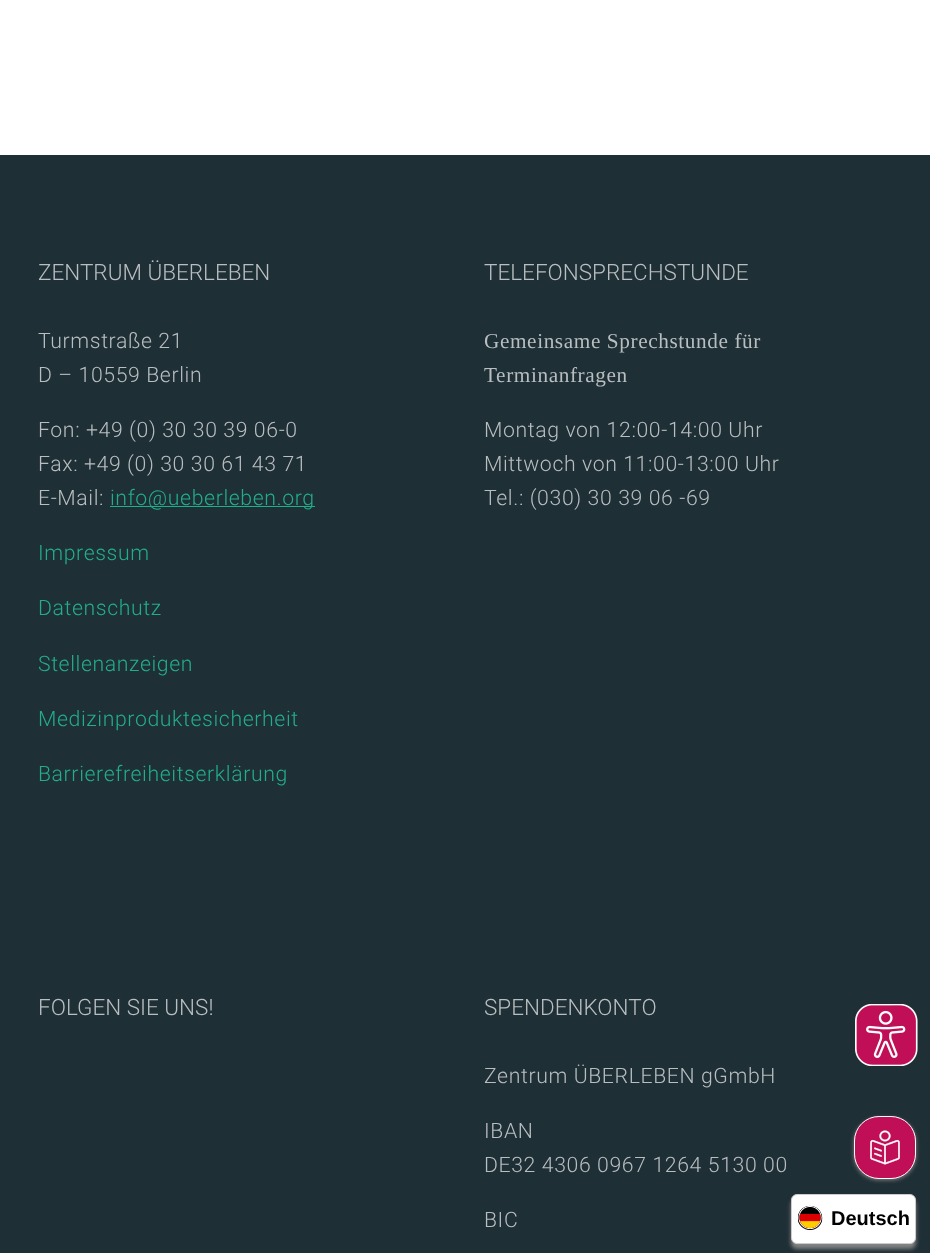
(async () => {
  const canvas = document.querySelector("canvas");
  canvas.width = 930;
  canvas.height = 1253;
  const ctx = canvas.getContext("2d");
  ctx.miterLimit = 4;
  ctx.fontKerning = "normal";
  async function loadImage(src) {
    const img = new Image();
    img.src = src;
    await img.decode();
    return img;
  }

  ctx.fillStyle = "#ffffff";
  ctx.fillRect(0, 0, 930, 1253);
  ctx.fillStyle = "#1f2f36";
  ctx.fillRect(0, 155, 930, 1098);
  ctx.fillStyle = "#22ad8d";
  ctx.fillRect(110, 506, 205, 1);
  ctx.drawImage(await loadImage("img/1.png"), 855, 1004, 63, 62);
  ctx.fillStyle = "#848484";
  ctx.filter = "blur(2px)";
  ctx.beginPath();
  ctx.roundRect(854, 1118, 62, 62, 25);
  ctx.fill();
  ctx.filter = "none";
  ctx.fillStyle = "#c00f57";
  ctx.beginPath();
  ctx.roundRect(854.5, 1116.5, 61, 62, 24.5);
  ctx.fill();
  ctx.strokeStyle = "#ffffff";
  ctx.stroke();
  ctx.drawImage(await loadImage("img/2.png"), 870, 1130, 30, 35);
  ctx.fillStyle = "#848484";
  ctx.filter = "blur(2px)";
  ctx.beginPath();
  ctx.roundRect(791, 1199, 125, 50, 6);
  ctx.fill();
  ctx.filter = "none";
  ctx.fillStyle = "#ffffff";
  ctx.beginPath();
  ctx.roundRect(791.5, 1194.5, 124, 49, 5.5);
  ctx.fill();
  ctx.strokeStyle = "#cccccc";
  ctx.stroke();
  ctx.drawImage(await loadImage("img/3.png"), 798, 1205, 25, 26);
  ctx.font = "300 22.5px Roboto";
  ctx.fillStyle = "#b9bec0";
  ctx.fillText("ZENTRUM ÜBERLEBEN", 38, 280);
  ctx.letterSpacing = "0.6px";
  ctx.font = "300 21.25px Roboto";
  for (const [text, x, y] of [
    ["Turmstraße 21", 38, 348],
    ["D – 10559 Berlin", 38, 382],
    ["Fon: +49 (0) 30 30 39 06-0", 38, 437],
    ["Fax: +49 (0) 30 30 61 43 71", 38, 471],
    ["E-Mail:", 38, 505],
  ]) {
    ctx.fillText(text, x, y);
  }
  ctx.fillStyle = "#22ad8d";
  for (const [text, x, y] of [
    ["info@ueberleben.org", 110, 505],
    ["Impressum", 38, 560],
    ["Datenschutz", 38, 615],
    ["Stellenanzeigen", 38, 671],
    ["Medizinproduktesicherheit", 38, 726],
    ["Barrierefreiheitserklärung", 38, 781],
  ]) {
    ctx.fillText(text, x, y);
  }
  ctx.letterSpacing = "0px";
  ctx.font = "300 22.5px Roboto";
  ctx.fillStyle = "#b9bec0";
  ctx.fillText("TELEFONSPRECHSTUNDE", 484, 280);
  ctx.letterSpacing = "0.6px";
  ctx.font = "21.25px Liberation Serif";
  ctx.fillText("Gemeinsame Sprechstunde für", 484, 348);
  ctx.fillText("Terminanfragen", 484, 382);
  ctx.font = "300 21.25px Roboto";
  for (const [text, x, y] of [
    ["Montag von 12:00-14:00 Uhr", 484, 437],
    ["Mittwoch von 11:00-13:00 Uhr", 484, 471],
    ["Tel.: (030) 30 39 06 -69", 484, 505],
  ]) {
    ctx.fillText(text, x, y);
  }
  ctx.letterSpacing = "0px";
  ctx.font = "300 22.5px Roboto";
  ctx.fillText("FOLGEN SIE UNS!", 38, 1015);
  ctx.fillText("SPENDENKONTO", 484, 1015);
  ctx.letterSpacing = "0.6px";
  ctx.font = "300 21.25px Roboto";
  for (const [text, x, y] of [
    ["Zentrum ÜBERLEBEN gGmbH", 484, 1083],
    ["IBAN", 484, 1138],
    ["DE32 4306 0967 1264 5130 00", 484, 1172],
    ["BIC", 484, 1227],
  ]) {
    ctx.fillText(text, x, y);
  }
  ctx.letterSpacing = "0px";
  ctx.font = "bold 20px Liberation Sans";
  ctx.fillStyle = "#000000";
  ctx.fillText("Deutsch", 831, 1225);
})();
